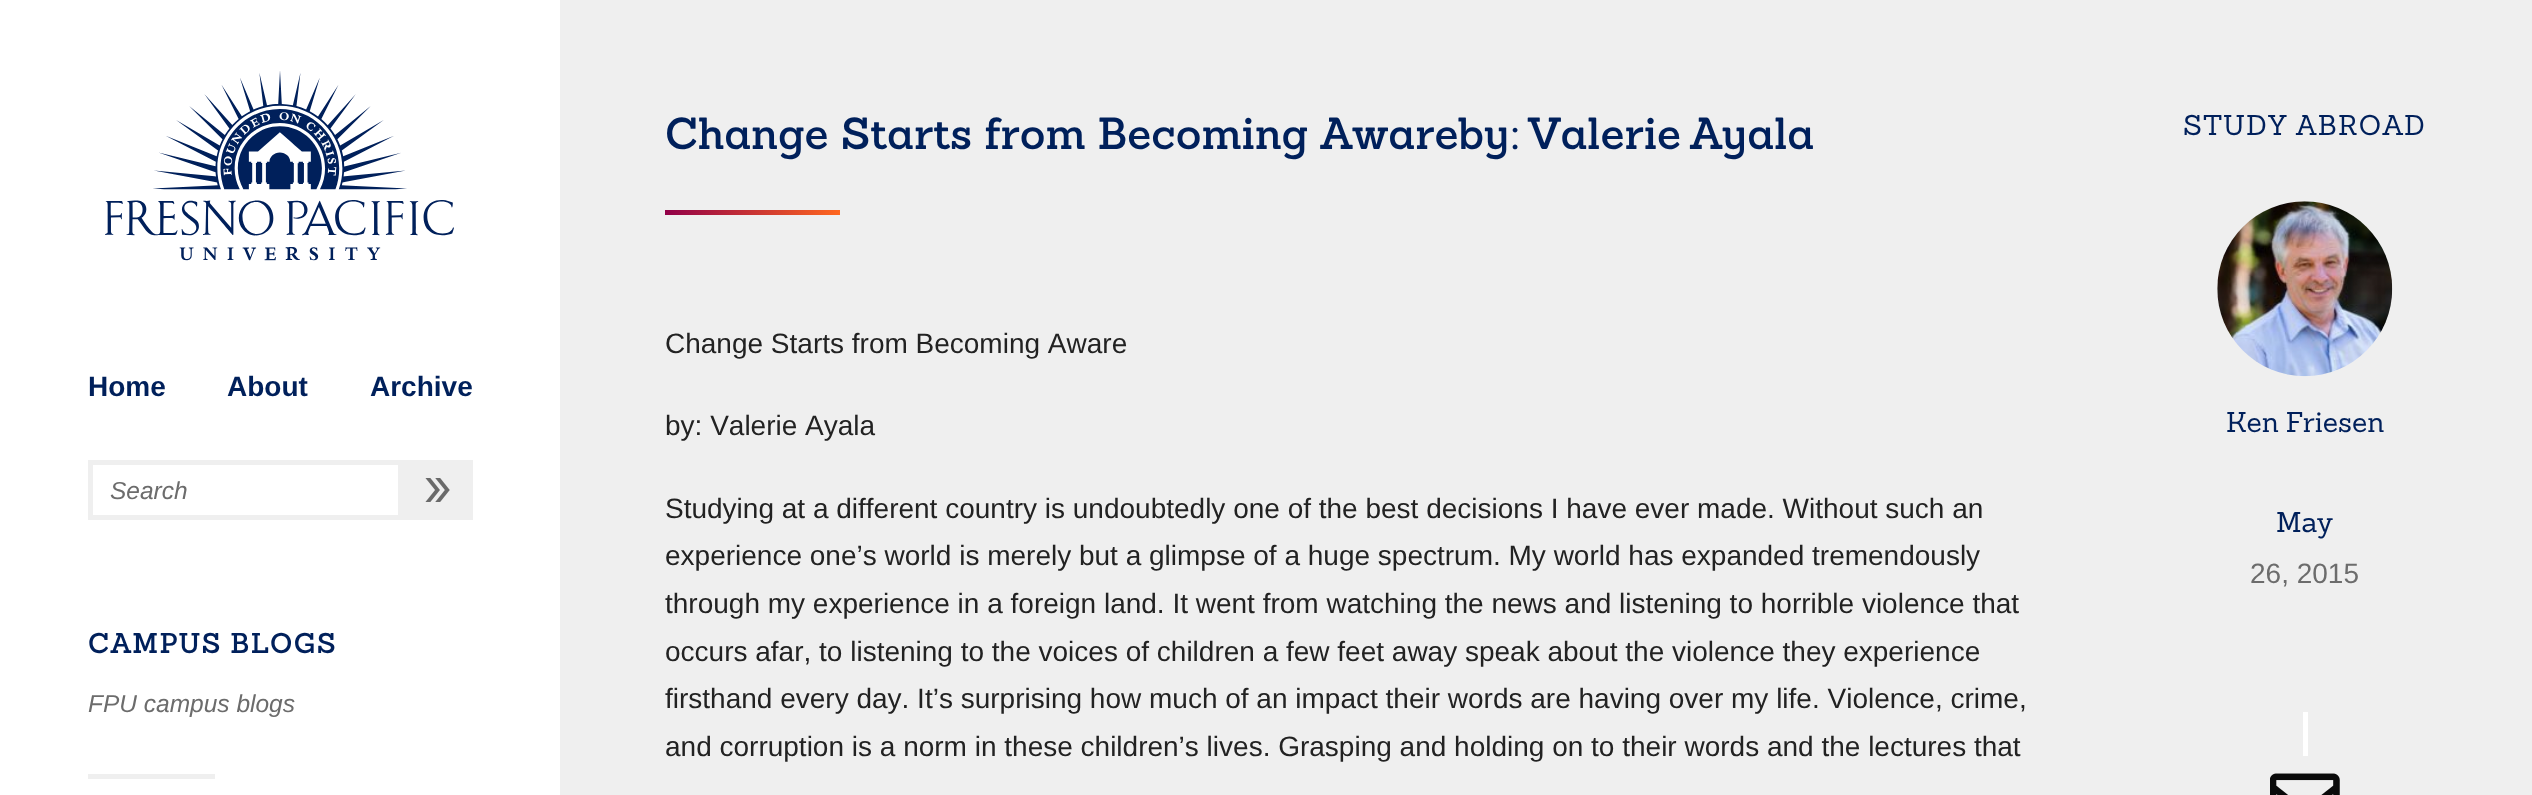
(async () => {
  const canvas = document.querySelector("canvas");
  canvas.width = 2532;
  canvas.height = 795;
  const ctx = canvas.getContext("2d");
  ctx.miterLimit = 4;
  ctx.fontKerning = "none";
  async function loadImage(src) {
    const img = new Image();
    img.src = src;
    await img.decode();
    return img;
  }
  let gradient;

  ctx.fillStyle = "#ffffff";
  ctx.fillRect(0, 0, 2532, 795);
  ctx.drawImage(await loadImage("img/1.png"), 105, 71, 349, 190);
  ctx.fillStyle = "#efefef";
  ctx.fillRect(403, 460, 70, 60);
  ctx.strokeStyle = "#efefef";
  ctx.lineWidth = 5;
  ctx.strokeRect(90.5, 462.5, 310, 55);
  ctx.drawImage(await loadImage("img/2.png"), 425, 478, 25, 24);
  ctx.fillRect(88, 774, 127, 5);
  ctx.fillRect(560, 0, 1972, 795);
  gradient = ctx.createLinearGradient(665, 213, 840, 213);
  gradient.addColorStop(0, "#910048");
  gradient.addColorStop(1, "#ff671f");
  ctx.fillStyle = gradient;
  ctx.fillRect(665, 210, 175, 5);
  ctx.drawImage(await loadImage("img/3.png"), 2217, 201, 176, 176);
  ctx.fillStyle = "#ffffff";
  ctx.fillRect(2303, 712, 5, 44);
  ctx.drawImage(await loadImage("img/4.png"), 2270, 773, 70, 22);
  ctx.font = "bold 28px Liberation Sans";
  ctx.fillStyle = "#00205b";
  for (const [text, x, y] of [
    ["Home", 88, 396],
    ["About", 227, 396],
    ["Archive", 370, 396],
  ]) {
    ctx.fillText(text, x, y);
  }
  ctx.font = "italic 24.5px Liberation Sans";
  ctx.fillStyle = "#6c6c6c";
  ctx.fillText("Search", 110, 499);
  ctx.letterSpacing = "1.4px";
  ctx.font = "600 28px Sanchez";
  ctx.fillStyle = "#00205b";
  ctx.fillText("CAMPUS BLOGS", 88, 653);
  ctx.letterSpacing = "0px";
  ctx.font = "italic 24.5px Liberation Sans";
  ctx.fillStyle = "#6c6c6c";
  ctx.fillText("FPU campus blogs", 88, 712);
  ctx.wordSpacing = "1px";
  ctx.font = "600 43.75px Sanchez";
  ctx.fillStyle = "#00205b";
  ctx.fillText("Change Starts from Becoming Aware", 665, 149);
  ctx.wordSpacing = "-3px";
  ctx.fillText("by: Valerie", 1458, 149);
  ctx.fillText("Ayala", 1690, 149);
  ctx.wordSpacing = "0px";
  ctx.font = "28px Liberation Sans";
  ctx.fillStyle = "#222222";
  for (const [text, x, y] of [
    ["Change Starts from Becoming Aware", 665, 353],
    ["by: Valerie Ayala", 665, 435],
    ["Studying at a different country is undoubtedly one of the best decisions I have ever made. Without such an", 665, 518],
    ["experience one’s world is merely but a glimpse of a huge spectrum. My world has expanded tremendously", 665, 565],
    ["through my experience in a foreign land. It went from watching the news and listening to horrible violence that", 665, 613],
    ["occurs afar, to listening to the voices of children a few feet away speak about the violence they experience", 665, 661],
    ["firsthand every day. It’s surprising how much of an impact their words are having over my life. Violence, crime,", 665, 708],
    ["and corruption is a norm in these children’s lives. Grasping and holding on to their words and the lectures that", 665, 756],
  ]) {
    ctx.fillText(text, x, y);
  }
  ctx.letterSpacing = "1.4px";
  ctx.font = "28px Sanchez";
  ctx.fillStyle = "#00205b";
  ctx.fillText("STUDY ABROAD", 2183, 135);
  ctx.letterSpacing = "0px";
  ctx.fillText("Ken Friesen", 2226, 432);
  ctx.fillText("May", 2276, 532);
  ctx.font = "28px Liberation Sans";
  ctx.fillStyle = "#6c6c6c";
  ctx.fillText("26, 2015", 2250, 583);
})();
